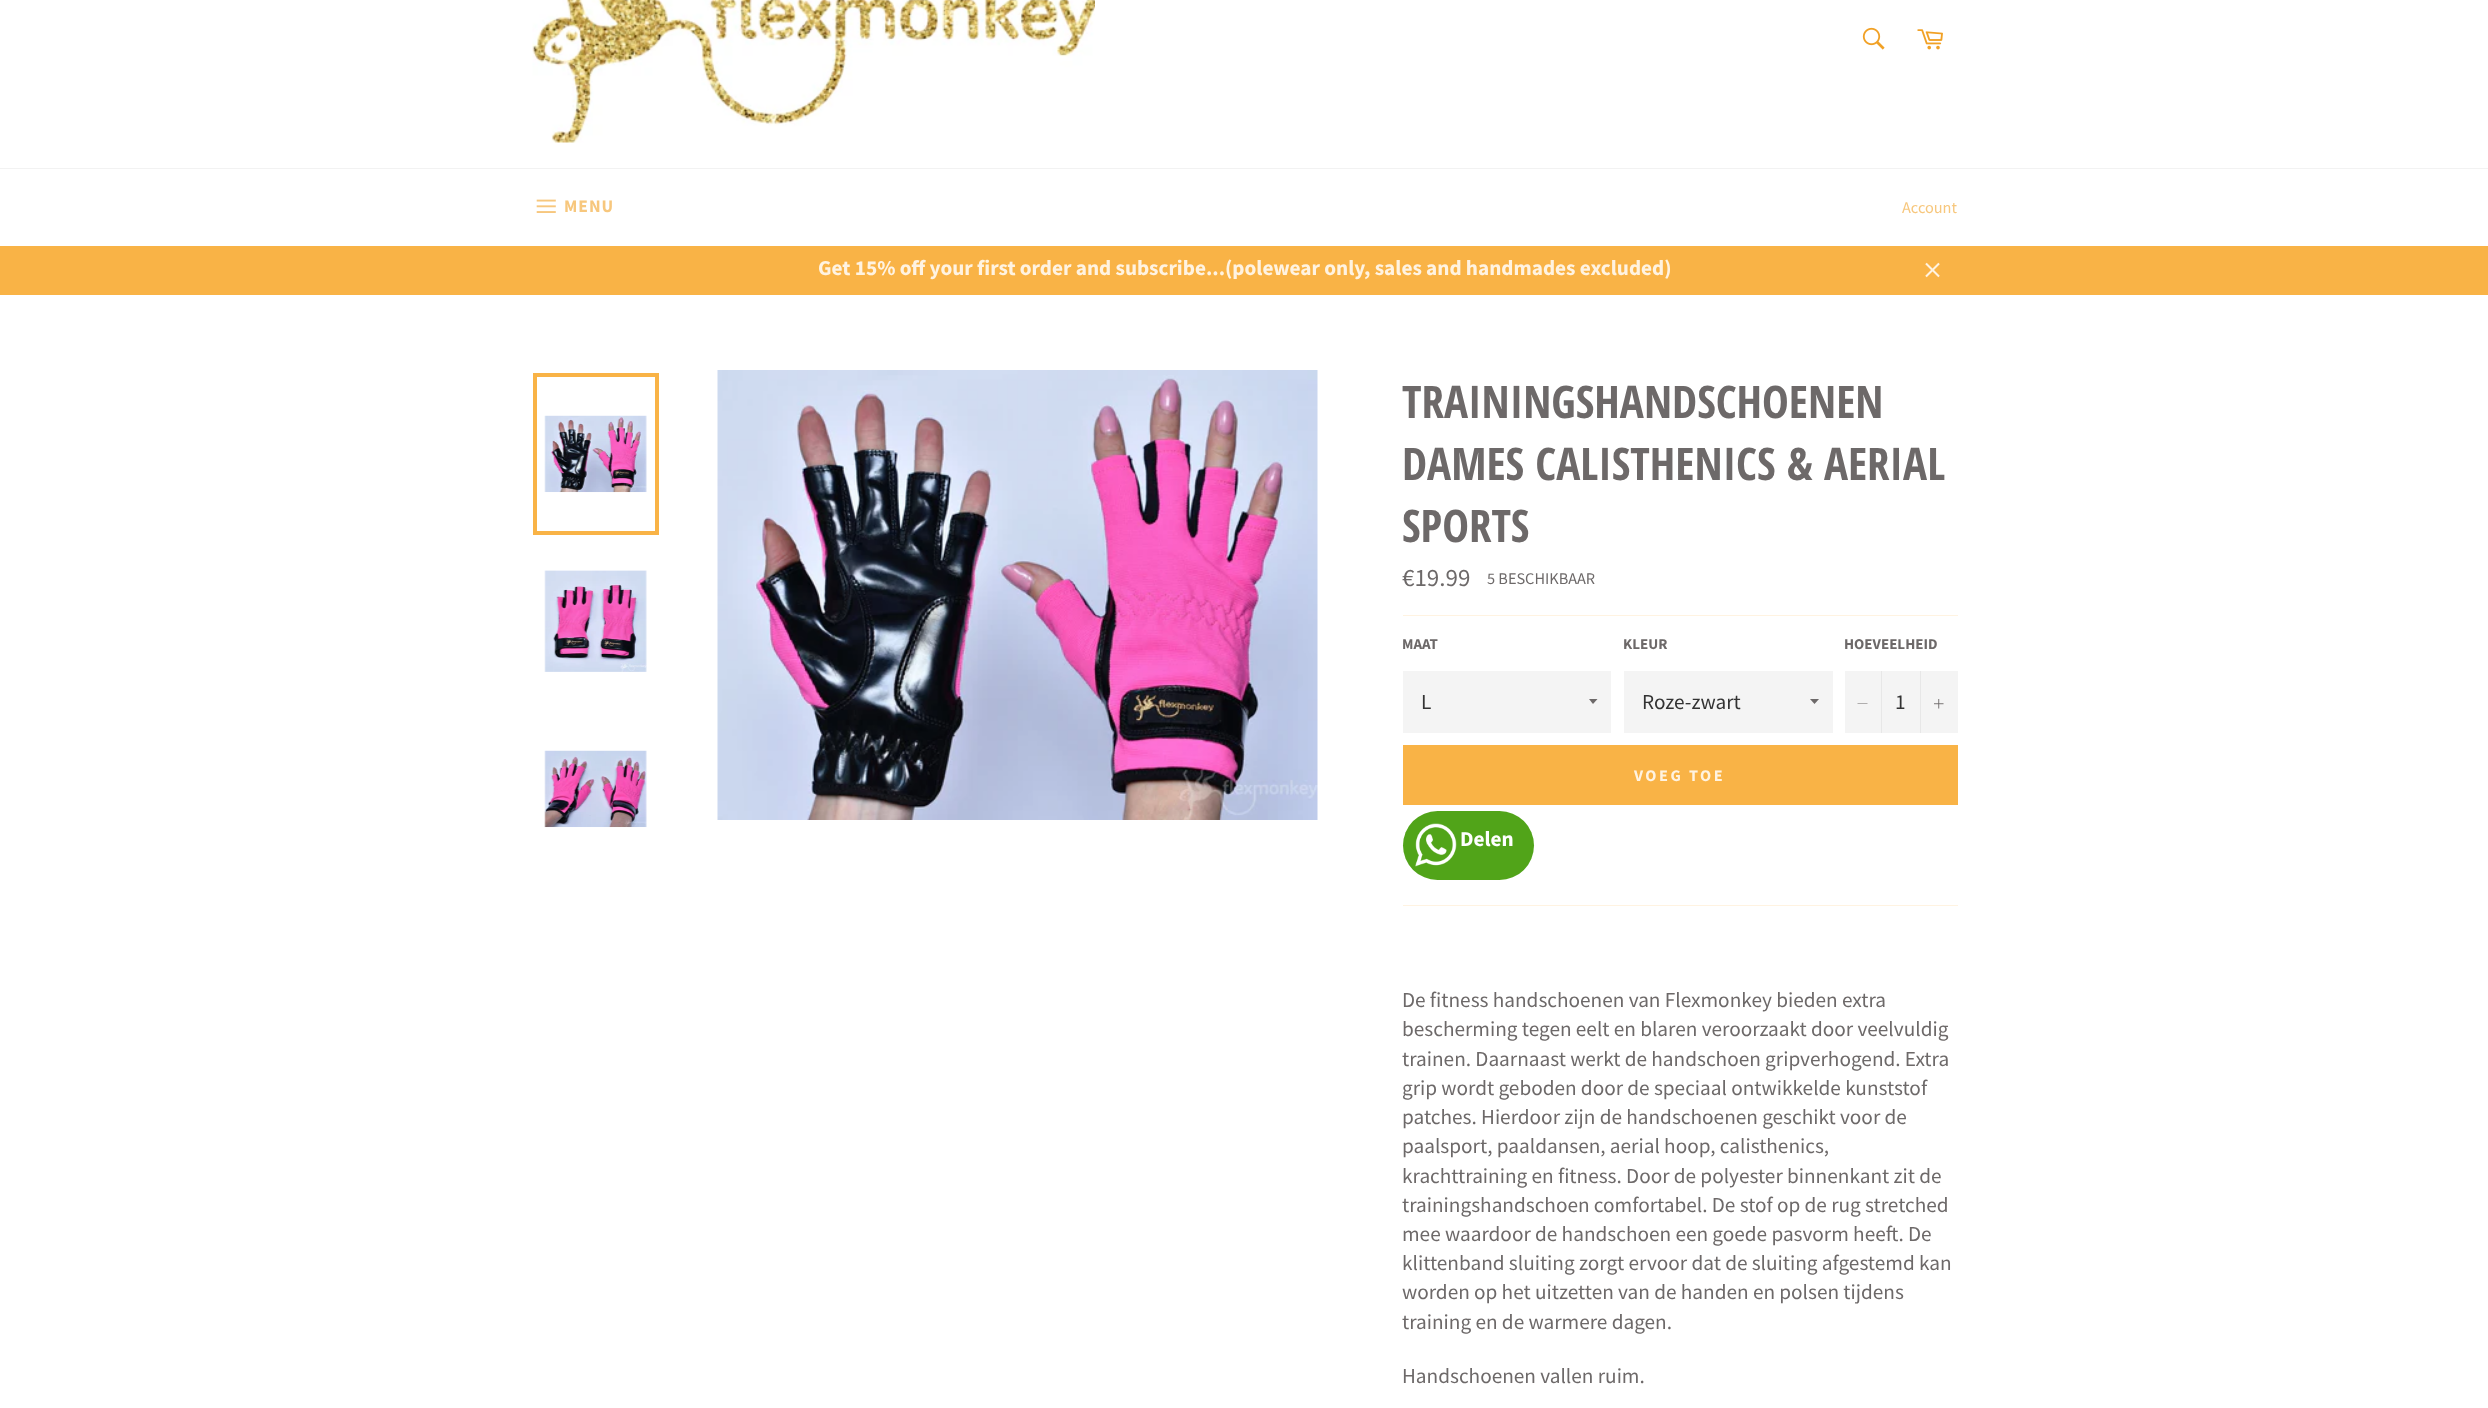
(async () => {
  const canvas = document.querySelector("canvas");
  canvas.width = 2488;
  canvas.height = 1408;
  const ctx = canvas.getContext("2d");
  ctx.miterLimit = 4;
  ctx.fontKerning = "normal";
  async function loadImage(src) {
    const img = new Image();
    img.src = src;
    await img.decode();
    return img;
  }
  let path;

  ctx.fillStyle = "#ffffff";
  ctx.fillRect(0, 0, 2488, 1408);
  ctx.drawImage(await loadImage("img/1.png"), 532, 0, 563, 143);
  ctx.drawImage(await loadImage("img/2.png"), 1862, 27, 23, 23);
  ctx.drawImage(await loadImage("img/3.png"), 1917, 29, 26, 21);
  ctx.fillStyle = "#f2f2f2";
  ctx.fillRect(0, 168, 2488, 1);
  ctx.drawImage(await loadImage("img/4.png"), 536, 199, 20, 14);
  ctx.fillStyle = "#f9b346";
  ctx.fillRect(0, 246, 2488, 49);
  ctx.drawImage(await loadImage("img/5.png"), 1925, 262, 15, 16);
  ctx.drawImage(await loadImage("img/6.png"), 544, 415, 103, 78);
  ctx.strokeStyle = "#f9b346";
  ctx.lineWidth = 4;
  ctx.strokeRect(535, 375, 122, 158);
  ctx.drawImage(await loadImage("img/7.png"), 544, 570, 103, 102);
  ctx.drawImage(await loadImage("img/8.png"), 544, 750, 103, 78);
  ctx.drawImage(await loadImage("img/9.png"), 717, 370, 601, 450);
  ctx.fillStyle = "#fff3e1";
  ctx.fillRect(1403, 615, 555, 1);
  ctx.fillStyle = "#f4f4f4";
  ctx.fillRect(1403, 671, 208, 62);
  ctx.fillStyle = "#6d6969";
  path = new Path2D("M1589 699L1593 704L1597.5 699Z");
  ctx.fill(path);
  ctx.fillStyle = "#f4f4f4";
  ctx.fillRect(1624, 671, 209, 62);
  ctx.fillStyle = "#6d6969";
  path = new Path2D("M1810 699L1814.5 704L1819 699Z");
  ctx.fill(path);
  ctx.fillStyle = "#f4f4f4";
  ctx.fillRect(1845, 671, 113, 62);
  ctx.fillStyle = "#e7e7e7";
  ctx.fillRect(1881, 671, 1, 62);
  ctx.fillStyle = "#6d6969";
  path = new Path2D("M1867.5 703.5V704H1857.5V703.5Z");
  ctx.fill(path, "evenodd");
  ctx.fillStyle = "#e7e7e7";
  ctx.fillRect(1920, 671, 1, 62);
  ctx.drawImage(await loadImage("img/10.png"), 1934, 699, 10, 10);
  ctx.fillStyle = "#f9b346";
  ctx.fillRect(1403, 745, 555, 60);
  ctx.fillStyle = "#51a419";
  ctx.beginPath();
  ctx.roundRect(1403, 811, 131, 69, 34.5);
  ctx.fill();
  ctx.drawImage(await loadImage("img/11.png"), 1415, 823, 42, 44);
  ctx.fillStyle = "#fff3e1";
  ctx.fillRect(1403, 905, 555, 1);
  ctx.letterSpacing = "1px";
  ctx.font = "bold 17.5px Source Sans Pro";
  ctx.fillStyle = "#f7c77d";
  ctx.fillText("MENU", 564, 212);
  ctx.letterSpacing = "0px";
  ctx.font = "16.25px Source Sans Pro";
  ctx.fillText("Account", 1902, 213);
  ctx.font = "bold 21.25px Source Sans Pro";
  ctx.fillStyle = "#fff3e1";
  ctx.fillText("Get 15% off your first order and subscribe...(polewear only, sales and handmades excluded)", 818, 275);
  ctx.font = "bold 45px Open Sans Condensed";
  ctx.fillStyle = "#6d6969";
  for (const [text, x, y] of [
    ["TRAININGSHANDSCHOENEN", 1402, 418],
    ["DAMES CALISTHENICS & AERIAL", 1402, 480],
    ["SPORTS", 1402, 542],
  ]) {
    ctx.fillText(text, x, y);
  }
  ctx.font = "25px Source Sans Pro";
  ctx.fillText("€19.99", 1402, 586);
  ctx.font = "16.25px Source Sans Pro";
  ctx.fillText("5 BESCHIKBAAR", 1487, 584);
  ctx.font = "bold 15px Source Sans Pro";
  ctx.fillText("MAAT", 1402, 649);
  ctx.font = "21.25px Source Sans Pro";
  ctx.fillStyle = "#333333";
  ctx.fillText("L", 1421, 709);
  ctx.font = "bold 15px Source Sans Pro";
  ctx.fillStyle = "#6d6969";
  ctx.fillText("KLEUR", 1623, 649);
  ctx.font = "21.25px Source Sans Pro";
  ctx.fillStyle = "#333333";
  ctx.fillText("Roze-zwart", 1642, 709);
  ctx.font = "bold 15px Source Sans Pro";
  ctx.fillStyle = "#6d6969";
  ctx.fillText("HOEVEELHEID", 1844, 649);
  ctx.font = "21.25px Source Sans Pro";
  ctx.fillStyle = "#333333";
  ctx.fillText("1", 1895, 709);
  ctx.letterSpacing = "2.5px";
  ctx.font = "bold 16.25px Source Sans Pro";
  ctx.fillStyle = "#fff3e1";
  ctx.fillText("VOEG TOE", 1634, 781);
  ctx.letterSpacing = "0px";
  ctx.font = "bold 21.25px Source Sans Pro";
  ctx.fillStyle = "#ffffff";
  ctx.fillText("Delen", 1460, 846);
  ctx.font = "21.25px Source Sans Pro";
  ctx.fillStyle = "#6d6969";
  for (const [text, x, y] of [
    ["De fitness handschoenen van Flexmonkey bieden extra", 1402, 1007],
    ["bescherming tegen eelt en blaren veroorzaakt door veelvuldig", 1402, 1036],
    ["trainen. Daarnaast werkt de handschoen gripverhogend. Extra", 1402, 1066],
    ["grip wordt geboden door de speciaal ontwikkelde kunststof", 1402, 1095],
    ["patches. Hierdoor zijn de handschoenen geschikt voor de", 1402, 1124],
    ["paalsport, paaldansen, aerial hoop, calisthenics,", 1402, 1153],
    ["krachttraining en fitness. Door de polyester binnenkant zit de", 1402, 1183],
    ["trainingshandschoen comfortabel. De stof op de rug stretched", 1402, 1212],
    ["mee waardoor de handschoen een goede pasvorm heeft. De", 1402, 1241],
    ["klittenband sluiting zorgt ervoor dat de sluiting afgestemd kan", 1402, 1270],
    ["worden op het uitzetten van de handen en polsen tijdens", 1402, 1299],
    ["training en de warmere dagen.", 1402, 1329],
    ["Handschoenen vallen ruim.", 1402, 1383],
  ]) {
    ctx.fillText(text, x, y);
  }
})();
